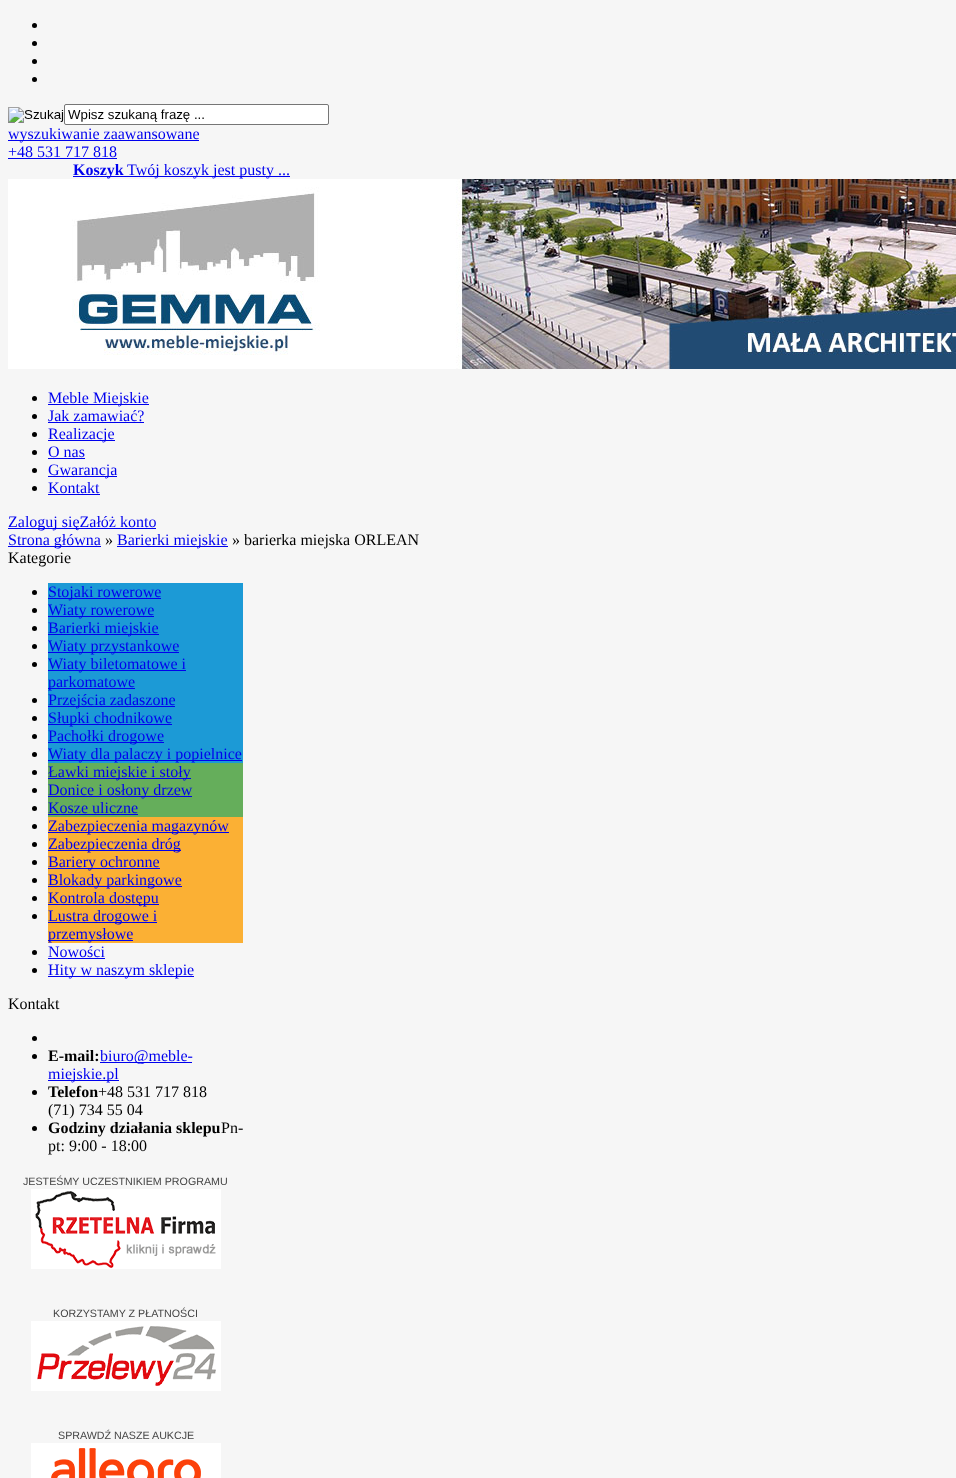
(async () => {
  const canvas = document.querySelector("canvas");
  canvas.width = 956;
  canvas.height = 1478;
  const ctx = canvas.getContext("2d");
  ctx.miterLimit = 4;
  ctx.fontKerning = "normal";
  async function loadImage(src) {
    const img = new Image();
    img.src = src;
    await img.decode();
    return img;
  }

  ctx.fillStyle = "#f6f6f6";
  ctx.fillRect(0, 0, 956, 1478);
  ctx.fillStyle = "#000000";
  ctx.beginPath();
  ctx.arc(34.5, 25.5, 2.5, 0, Math.PI * 2);
  ctx.fill();
  ctx.beginPath();
  ctx.arc(34.5, 43.5, 2.5, 0, Math.PI * 2);
  ctx.fill();
  ctx.beginPath();
  ctx.arc(34.5, 61.5, 2.5, 0, Math.PI * 2);
  ctx.fill();
  ctx.beginPath();
  ctx.arc(34.5, 79.5, 2.5, 0, Math.PI * 2);
  ctx.fill();
  ctx.drawImage(await loadImage("img/1.png"), 8, 107, 56, 16);
  ctx.fillStyle = "#ffffff";
  ctx.beginPath();
  ctx.roundRect(64.5, 104.5, 264, 20, 1.5);
  ctx.fill();
  ctx.strokeStyle = "#767676";
  ctx.stroke();
  for (const [x, y, w, h, color] of [
    [8, 140, 191, 1, "#0000ee"],
    [8, 158, 109, 1, "#0000ee"],
    [73, 176, 217, 1, "#0000ee"],
  ]) {
    ctx.fillStyle = color;
    ctx.fillRect(x, y, w, h);
  }
  ctx.drawImage(await loadImage("img/2.png"), 8, 179, 948, 190);
  ctx.fillStyle = "#000000";
  ctx.beginPath();
  ctx.arc(34.5, 398.5, 2.5, 0, Math.PI * 2);
  ctx.fill();
  ctx.fillStyle = "#0000ee";
  ctx.fillRect(48, 404, 101, 1);
  ctx.fillStyle = "#000000";
  ctx.beginPath();
  ctx.arc(34.5, 416.5, 2.5, 0, Math.PI * 2);
  ctx.fill();
  ctx.fillStyle = "#0000ee";
  ctx.fillRect(48, 422, 96, 1);
  ctx.fillStyle = "#000000";
  ctx.beginPath();
  ctx.arc(34.5, 434.5, 2.5, 0, Math.PI * 2);
  ctx.fill();
  ctx.fillStyle = "#0000ee";
  ctx.fillRect(48, 440, 67, 1);
  ctx.fillStyle = "#000000";
  ctx.beginPath();
  ctx.arc(34.5, 452.5, 2.5, 0, Math.PI * 2);
  ctx.fill();
  ctx.fillStyle = "#0000ee";
  ctx.fillRect(48, 458, 37, 1);
  ctx.fillStyle = "#000000";
  ctx.beginPath();
  ctx.arc(34.5, 470.5, 2.5, 0, Math.PI * 2);
  ctx.fill();
  ctx.fillStyle = "#0000ee";
  ctx.fillRect(48, 476, 69, 1);
  ctx.fillStyle = "#000000";
  ctx.beginPath();
  ctx.arc(34.5, 488.5, 2.5, 0, Math.PI * 2);
  ctx.fill();
  for (const [x, y, w, h, color] of [
    [48, 494, 52, 1, "#0000ee"],
    [8, 528, 148, 1, "#0000ee"],
    [8, 546, 93, 1, "#0000ee"],
    [117, 546, 111, 1, "#0000ee"],
  ]) {
    ctx.fillStyle = color;
    ctx.fillRect(x, y, w, h);
  }
  ctx.fillStyle = "#000000";
  ctx.beginPath();
  ctx.arc(34.5, 592.5, 2.5, 0, Math.PI * 2);
  ctx.fill();
  ctx.fillStyle = "#1c9ad6";
  ctx.fillRect(48, 583, 195, 180);
  ctx.fillStyle = "#0000ee";
  ctx.fillRect(48, 598, 113, 1);
  ctx.fillStyle = "#000000";
  ctx.beginPath();
  ctx.arc(34.5, 610.5, 2.5, 0, Math.PI * 2);
  ctx.fill();
  ctx.fillStyle = "#0000ee";
  ctx.fillRect(48, 616, 106, 1);
  ctx.fillStyle = "#000000";
  ctx.beginPath();
  ctx.arc(34.5, 628.5, 2.5, 0, Math.PI * 2);
  ctx.fill();
  ctx.fillStyle = "#0000ee";
  ctx.fillRect(48, 634, 111, 1);
  ctx.fillStyle = "#000000";
  ctx.beginPath();
  ctx.arc(34.5, 646.5, 2.5, 0, Math.PI * 2);
  ctx.fill();
  ctx.fillStyle = "#0000ee";
  ctx.fillRect(48, 652, 131, 1);
  ctx.fillStyle = "#000000";
  ctx.beginPath();
  ctx.arc(34.5, 664.5, 2.5, 0, Math.PI * 2);
  ctx.fill();
  ctx.fillStyle = "#0000ee";
  ctx.fillRect(48, 670, 138, 1);
  ctx.fillRect(48, 688, 87, 1);
  ctx.fillStyle = "#000000";
  ctx.beginPath();
  ctx.arc(34.5, 700.5, 2.5, 0, Math.PI * 2);
  ctx.fill();
  ctx.fillStyle = "#0000ee";
  ctx.fillRect(48, 706, 127, 1);
  ctx.fillStyle = "#000000";
  ctx.beginPath();
  ctx.arc(34.5, 718.5, 2.5, 0, Math.PI * 2);
  ctx.fill();
  ctx.fillStyle = "#0000ee";
  ctx.fillRect(48, 724, 124, 1);
  ctx.fillStyle = "#000000";
  ctx.beginPath();
  ctx.arc(34.5, 736.5, 2.5, 0, Math.PI * 2);
  ctx.fill();
  ctx.fillStyle = "#0000ee";
  ctx.fillRect(48, 742, 116, 1);
  ctx.fillStyle = "#000000";
  ctx.beginPath();
  ctx.arc(34.5, 754.5, 2.5, 0, Math.PI * 2);
  ctx.fill();
  ctx.fillStyle = "#0000ee";
  ctx.fillRect(48, 760, 194, 1);
  ctx.fillStyle = "#000000";
  ctx.beginPath();
  ctx.arc(34.5, 772.5, 2.5, 0, Math.PI * 2);
  ctx.fill();
  ctx.fillStyle = "#65ae5b";
  ctx.fillRect(48, 763, 195, 54);
  ctx.fillStyle = "#0000ee";
  ctx.fillRect(48, 778, 143, 1);
  ctx.fillStyle = "#000000";
  ctx.beginPath();
  ctx.arc(34.5, 790.5, 2.5, 0, Math.PI * 2);
  ctx.fill();
  ctx.fillStyle = "#0000ee";
  ctx.fillRect(48, 796, 144, 1);
  ctx.fillStyle = "#000000";
  ctx.beginPath();
  ctx.arc(34.5, 808.5, 2.5, 0, Math.PI * 2);
  ctx.fill();
  ctx.fillStyle = "#0000ee";
  ctx.fillRect(48, 814, 90, 1);
  ctx.fillStyle = "#000000";
  ctx.beginPath();
  ctx.arc(34.5, 826.5, 2.5, 0, Math.PI * 2);
  ctx.fill();
  ctx.fillStyle = "#fbb034";
  ctx.fillRect(48, 817, 195, 126);
  ctx.fillStyle = "#0000ee";
  ctx.fillRect(48, 832, 181, 1);
  ctx.fillStyle = "#000000";
  ctx.beginPath();
  ctx.arc(34.5, 844.5, 2.5, 0, Math.PI * 2);
  ctx.fill();
  ctx.fillStyle = "#0000ee";
  ctx.fillRect(48, 850, 133, 1);
  ctx.fillStyle = "#000000";
  ctx.beginPath();
  ctx.arc(34.5, 862.5, 2.5, 0, Math.PI * 2);
  ctx.fill();
  ctx.fillStyle = "#0000ee";
  ctx.fillRect(48, 868, 112, 1);
  ctx.fillStyle = "#000000";
  ctx.beginPath();
  ctx.arc(34.5, 880.5, 2.5, 0, Math.PI * 2);
  ctx.fill();
  ctx.fillStyle = "#0000ee";
  ctx.fillRect(48, 886, 134, 1);
  ctx.fillStyle = "#000000";
  ctx.beginPath();
  ctx.arc(34.5, 898.5, 2.5, 0, Math.PI * 2);
  ctx.fill();
  ctx.fillStyle = "#0000ee";
  ctx.fillRect(48, 904, 111, 1);
  ctx.fillStyle = "#000000";
  ctx.beginPath();
  ctx.arc(34.5, 916.5, 2.5, 0, Math.PI * 2);
  ctx.fill();
  ctx.fillStyle = "#0000ee";
  ctx.fillRect(48, 922, 109, 1);
  ctx.fillRect(48, 940, 85, 1);
  ctx.fillStyle = "#000000";
  ctx.beginPath();
  ctx.arc(34.5, 952.5, 2.5, 0, Math.PI * 2);
  ctx.fill();
  ctx.fillStyle = "#0000ee";
  ctx.fillRect(48, 958, 57, 1);
  ctx.fillStyle = "#000000";
  ctx.beginPath();
  ctx.arc(34.5, 970.5, 2.5, 0, Math.PI * 2);
  ctx.fill();
  ctx.fillStyle = "#0000ee";
  ctx.fillRect(48, 976, 146, 1);
  ctx.fillStyle = "#000000";
  ctx.beginPath();
  ctx.arc(34.5, 1038.5, 2.5, 0, Math.PI * 2);
  ctx.fill();
  ctx.beginPath();
  ctx.arc(34.5, 1056.5, 2.5, 0, Math.PI * 2);
  ctx.fill();
  ctx.fillStyle = "#0000ee";
  ctx.fillRect(100, 1062, 92, 1);
  ctx.fillRect(48, 1080, 71, 1);
  ctx.fillStyle = "#000000";
  ctx.beginPath();
  ctx.arc(34.5, 1092.5, 2.5, 0, Math.PI * 2);
  ctx.fill();
  ctx.beginPath();
  ctx.arc(34.5, 1128.5, 2.5, 0, Math.PI * 2);
  ctx.fill();
  ctx.drawImage(await loadImage("img/3.png"), 31, 1189, 190, 80);
  ctx.drawImage(await loadImage("img/4.png"), 31, 1321, 190, 70);
  ctx.drawImage(await loadImage("img/5.png"), 31, 1443, 190, 35);
  ctx.font = "13.25px Liberation Sans";
  ctx.fillText("Wpisz szukaną frazę ...", 68, 119);
  ctx.font = "16px Liberation Serif";
  ctx.fillStyle = "#0000ee";
  ctx.fillText("wyszukiwanie zaawansowane", 8, 139);
  ctx.fillText("+48 531 717 818", 8, 157);
  ctx.font = "bold 16px Liberation Serif";
  ctx.fillText("Koszyk", 73, 175);
  ctx.font = "16px Liberation Serif";
  for (const [text, x, y] of [
    ["Twój koszyk jest pusty ...", 127, 175],
    ["Meble Miejskie", 48, 403],
    ["Jak zamawiać?", 48, 421],
    ["Realizacje", 48, 439],
    ["O nas", 48, 457],
    ["Gwarancja", 48, 475],
    ["Kontakt", 48, 493],
    ["Zaloguj sięZałóż konto", 8, 527],
    ["Strona główna", 8, 545],
  ]) {
    ctx.fillText(text, x, y);
  }
  ctx.fillStyle = "#000000";
  ctx.fillText("»", 105, 545);
  ctx.fillStyle = "#0000ee";
  ctx.fillText("Barierki miejskie", 117, 545);
  ctx.fillStyle = "#000000";
  ctx.fillText("» barierka miejska ORLEAN", 232, 545);
  ctx.fillText("Kategorie", 8, 563);
  ctx.fillStyle = "#0000ee";
  for (const [text, x, y] of [
    ["Stojaki rowerowe", 48, 597],
    ["Wiaty rowerowe", 48, 615],
    ["Barierki miejskie", 48, 633],
    ["Wiaty przystankowe", 48, 651],
    ["Wiaty biletomatowe i", 48, 669],
    ["parkomatowe", 48, 687],
    ["Przejścia zadaszone", 48, 705],
    ["Słupki chodnikowe", 48, 723],
    ["Pachołki drogowe", 48, 741],
    ["Wiaty dla palaczy i popielnice", 48, 759],
    ["Ławki miejskie i stoły", 48, 777],
    ["Donice i osłony drzew", 48, 795],
    ["Kosze uliczne", 48, 813],
    ["Zabezpieczenia magazynów", 48, 831],
    ["Zabezpieczenia dróg", 48, 849],
    ["Bariery ochronne", 48, 867],
    ["Blokady parkingowe", 48, 885],
    ["Kontrola dostępu", 48, 903],
    ["Lustra drogowe i", 48, 921],
    ["przemysłowe", 48, 939],
    ["Nowości", 48, 957],
    ["Hity w naszym sklepie", 48, 975],
  ]) {
    ctx.fillText(text, x, y);
  }
  ctx.fillStyle = "#000000";
  ctx.fillText("Kontakt", 8, 1009);
  ctx.font = "bold 16px Liberation Serif";
  ctx.fillText("E-mail:", 48, 1061);
  ctx.font = "16px Liberation Serif";
  ctx.fillStyle = "#0000ee";
  ctx.fillText("biuro@meble-", 100, 1061);
  ctx.fillText("miejskie.pl", 48, 1079);
  ctx.font = "bold 16px Liberation Serif";
  ctx.fillStyle = "#000000";
  ctx.fillText("Telefon", 48, 1097);
  ctx.font = "16px Liberation Serif";
  ctx.fillText("+48 531 717 818", 98, 1097);
  ctx.fillText("(71) 734 55 04", 48, 1115);
  ctx.font = "bold 16px Liberation Serif";
  ctx.fillText("Godziny działania sklepu", 48, 1133);
  ctx.font = "16px Liberation Serif";
  ctx.fillText("Pn-", 221, 1133);
  ctx.fillText("pt: 9:00 - 18:00", 48, 1151);
  ctx.font = "10.7px Liberation Sans";
  ctx.fillStyle = "#444444";
  for (const [text, x, y] of [
    ["JESTEŚMY UCZESTNIKIEM PROGRAMU", 23, 1185],
    ["KORZYSTAMY Z PŁATNOŚCI", 53, 1317],
    ["SPRAWDŹ NASZE AUKCJE", 58, 1439],
  ]) {
    ctx.fillText(text, x, y);
  }
})();
